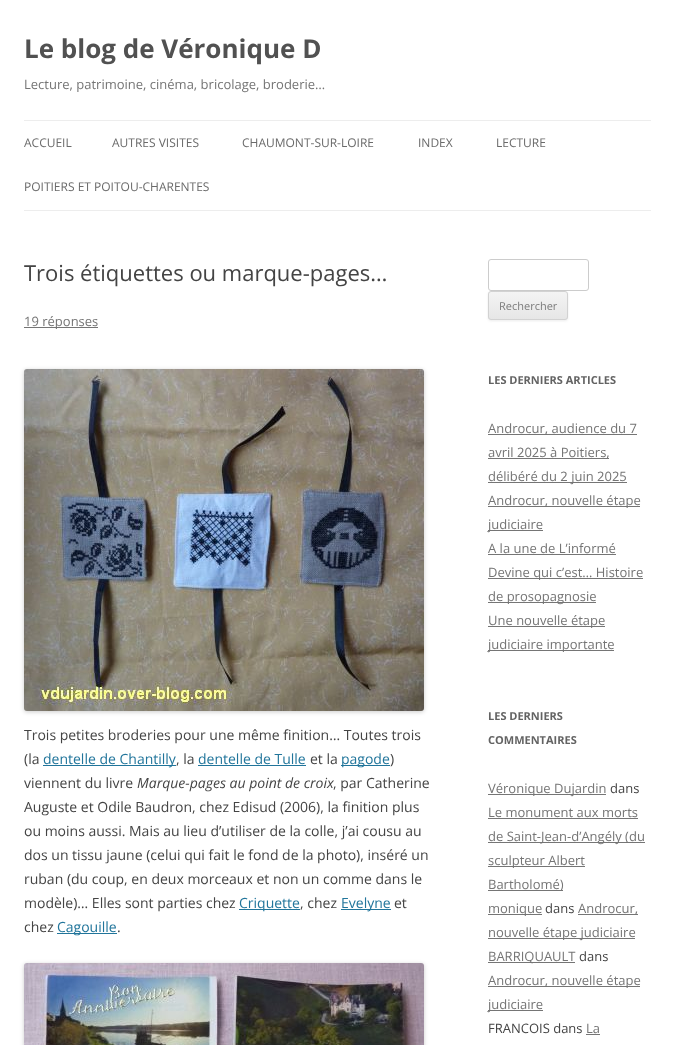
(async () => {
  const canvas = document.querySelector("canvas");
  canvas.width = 675;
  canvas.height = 1045;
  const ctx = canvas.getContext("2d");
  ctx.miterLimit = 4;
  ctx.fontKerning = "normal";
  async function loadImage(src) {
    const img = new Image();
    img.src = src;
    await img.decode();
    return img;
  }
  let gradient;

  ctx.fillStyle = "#ffffff";
  ctx.fillRect(0, 0, 675, 1045);
  for (const [x, y, w, h, color] of [
    [24, 120, 627, 1, "#ededed"],
    [24, 210, 627, 1, "#ededed"],
    [24, 327, 74, 1, "#757575"],
  ]) {
    ctx.fillStyle = color;
    ctx.fillRect(x, y, w, h);
  }
  ctx.fillStyle = "rgba(0, 0, 0, 0.2)";
  ctx.filter = "blur(2px)";
  ctx.beginPath();
  ctx.roundRect(24, 370, 400, 342, 3);
  ctx.fill();
  ctx.filter = "none";
  ctx.drawImage(await loadImage("img/1.png"), 24, 369, 400, 342);
  for (const [x, y, w, h, color] of [
    [43, 765, 133, 1, "#21759b"],
    [198, 765, 108, 1, "#21759b"],
    [341, 765, 49, 1, "#21759b"],
    [239, 909, 61, 1, "#21759b"],
    [341, 909, 50, 1, "#21759b"],
    [57, 933, 60, 1, "#21759b"],
  ]) {
    ctx.fillStyle = color;
    ctx.fillRect(x, y, w, h);
  }
  ctx.fillStyle = "rgba(0, 0, 0, 0.2)";
  ctx.filter = "blur(2px)";
  ctx.beginPath();
  ctx.roundRect(24, 964, 400, 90, 3);
  ctx.fill();
  ctx.filter = "none";
  ctx.drawImage(await loadImage("img/2.png"), 24, 963, 400, 82);
  ctx.beginPath();
  ctx.roundRect(488.5, 259.5, 100, 31, 2.5);
  ctx.strokeStyle = "#cccccc";
  ctx.stroke();
  ctx.fillStyle = "rgba(64, 64, 64, 0.1)";
  ctx.filter = "blur(1px)";
  ctx.beginPath();
  ctx.roundRect(488, 292, 80, 29, 3);
  ctx.fill();
  ctx.filter = "none";
  ctx.save();
  ctx.beginPath();
  ctx.roundRect(488, 291, 80, 29, 3);
  ctx.clip();
  gradient = ctx.createLinearGradient(528, 292, 528, 319);
  gradient.addColorStop(0, "#f4f4f4");
  gradient.addColorStop(1, "#e6e6e6");
  ctx.fillStyle = gradient;
  ctx.fillRect(488, 292, 80, 27);
  ctx.restore();
  ctx.beginPath();
  ctx.roundRect(488.5, 291.5, 79, 28, 2.5);
  ctx.strokeStyle = "#d2d2d2";
  ctx.stroke();
  for (const [x, y, w, h, color] of [
    [488, 434, 149, 1, "#757575"],
    [488, 458, 121, 1, "#757575"],
    [488, 482, 139, 1, "#757575"],
    [488, 506, 152, 1, "#757575"],
    [488, 530, 55, 1, "#757575"],
    [488, 554, 128, 1, "#757575"],
    [488, 578, 155, 1, "#757575"],
    [488, 602, 108, 1, "#757575"],
    [488, 626, 117, 1, "#757575"],
    [488, 650, 126, 1, "#757575"],
    [488, 794, 118, 1, "#757575"],
    [488, 818, 150, 1, "#757575"],
    [488, 842, 157, 1, "#757575"],
    [488, 866, 97, 1, "#757575"],
    [488, 890, 75, 1, "#757575"],
    [488, 914, 54, 1, "#757575"],
    [578, 914, 60, 1, "#757575"],
    [488, 938, 147, 1, "#757575"],
    [488, 962, 87, 1, "#757575"],
    [488, 986, 152, 1, "#757575"],
    [488, 1010, 55, 1, "#757575"],
    [586, 1034, 14, 1, "#757575"],
  ]) {
    ctx.fillStyle = color;
    ctx.fillRect(x, y, w, h);
  }
  ctx.font = "bold 26px Open Sans";
  ctx.fillStyle = "#515151";
  ctx.fillText("Le blog de Véronique D", 24, 58);
  ctx.font = "13px Open Sans";
  ctx.fillStyle = "#757575";
  ctx.fillText("Lecture, patrimoine, cinéma, bricolage, broderie…", 24, 89);
  ctx.font = "12px Open Sans";
  ctx.fillStyle = "#6a6a6a";
  for (const [text, x, y] of [
    ["ACCUEIL", 24, 147],
    ["AUTRES VISITES", 112, 147],
    ["CHAUMONT-SUR-LOIRE", 242, 147],
    ["INDEX", 418, 147],
    ["LECTURE", 496, 147],
    ["POITIERS ET POITOU-CHARENTES", 24, 191],
  ]) {
    ctx.fillText(text, x, y);
  }
  ctx.font = "22px Open Sans";
  ctx.fillStyle = "#444444";
  ctx.fillText("Trois étiquettes ou marque-pages…", 24, 281);
  ctx.font = "13px Open Sans";
  ctx.fillStyle = "#757575";
  ctx.fillText("19 réponses", 24, 326);
  ctx.font = "14px Open Sans";
  ctx.fillStyle = "#444444";
  ctx.fillText("Trois petites broderies pour une même finition… Toutes trois", 24, 740);
  ctx.fillText("(la", 24, 764);
  ctx.fillStyle = "#21759b";
  ctx.fillText("dentelle de Chantilly", 43, 764);
  ctx.fillStyle = "#444444";
  ctx.fillText(", la", 176, 764);
  ctx.fillStyle = "#21759b";
  ctx.fillText("dentelle de Tulle", 198, 764);
  ctx.fillStyle = "#444444";
  ctx.fillText("et la", 310, 764);
  ctx.fillStyle = "#21759b";
  ctx.fillText("pagode", 341, 764);
  ctx.fillStyle = "#444444";
  ctx.fillText(")", 390, 764);
  ctx.fillText("viennent du livre", 24, 788);
  ctx.font = "italic 14px Open Sans";
  ctx.fillText("Marque-pages au point de croix", 137, 788);
  ctx.font = "14px Open Sans";
  for (const [text, x, y] of [
    [", par Catherine", 333, 788],
    ["Auguste et Odile Baudron, chez Edisud (2006), la finition plus", 24, 812],
    ["ou moins aussi. Mais au lieu d’utiliser de la colle, j’ai cousu au", 24, 836],
    ["dos un tissu jaune (celui qui fait le fond de la photo), inséré un", 24, 860],
    ["ruban (du coup, en deux morceaux et non un comme dans le", 24, 884],
    ["modèle)… Elles sont parties chez", 24, 908],
  ]) {
    ctx.fillText(text, x, y);
  }
  ctx.fillStyle = "#21759b";
  ctx.fillText("Criquette", 239, 908);
  ctx.fillStyle = "#444444";
  ctx.fillText(", chez", 300, 908);
  ctx.fillStyle = "#21759b";
  ctx.fillText("Evelyne", 341, 908);
  ctx.fillStyle = "#444444";
  ctx.fillText("et", 394, 908);
  ctx.fillText("chez", 24, 932);
  ctx.fillStyle = "#21759b";
  ctx.fillText("Cagouille", 57, 932);
  ctx.fillStyle = "#444444";
  ctx.fillText(".", 117, 932);
  ctx.font = "11px Open Sans";
  ctx.fillStyle = "#7c7c7c";
  ctx.fillText("Rechercher", 499, 310);
  ctx.font = "bold 11px Open Sans";
  ctx.fillStyle = "#636363";
  ctx.fillText("LES DERNIERS ARTICLES", 488, 384);
  ctx.font = "13px Open Sans";
  ctx.fillStyle = "#757575";
  for (const [text, x, y] of [
    ["Androcur, audience du 7", 488, 433],
    ["avril 2025 à Poitiers,", 488, 457],
    ["délibéré du 2 juin 2025", 488, 481],
    ["Androcur, nouvelle étape", 488, 505],
    ["judiciaire", 488, 529],
    ["A la une de L’informé", 488, 553],
    ["Devine qui c’est… Histoire", 488, 577],
    ["de prosopagnosie", 488, 601],
    ["Une nouvelle étape", 488, 625],
    ["judiciaire importante", 488, 649],
  ]) {
    ctx.fillText(text, x, y);
  }
  ctx.font = "bold 11px Open Sans";
  ctx.fillStyle = "#636363";
  ctx.fillText("LES DERNIERS", 488, 720);
  ctx.fillText("COMMENTAIRES", 488, 744);
  ctx.font = "13px Open Sans";
  ctx.fillStyle = "#757575";
  ctx.fillText("Véronique Dujardin", 488, 793);
  ctx.fillStyle = "#444444";
  ctx.fillText("dans", 610, 793);
  ctx.fillStyle = "#757575";
  for (const [text, x, y] of [
    ["Le monument aux morts", 488, 817],
    ["de Saint-Jean-d’Angély (du", 488, 841],
    ["sculpteur Albert", 488, 865],
    ["Bartholomé)", 488, 889],
    ["monique", 488, 913],
  ]) {
    ctx.fillText(text, x, y);
  }
  ctx.fillStyle = "#444444";
  ctx.fillText("dans", 545, 913);
  ctx.fillStyle = "#757575";
  for (const [text, x, y] of [
    ["Androcur,", 578, 913],
    ["nouvelle étape judiciaire", 488, 937],
    ["BARRIQUAULT", 488, 961],
  ]) {
    ctx.fillText(text, x, y);
  }
  ctx.fillStyle = "#444444";
  ctx.fillText("dans", 579, 961);
  ctx.fillStyle = "#757575";
  ctx.fillText("Androcur, nouvelle étape", 488, 985);
  ctx.fillText("judiciaire", 488, 1009);
  ctx.fillStyle = "#444444";
  ctx.fillText("FRANCOIS dans", 488, 1033);
  ctx.fillStyle = "#757575";
  ctx.fillText("La", 586, 1033);
})();
